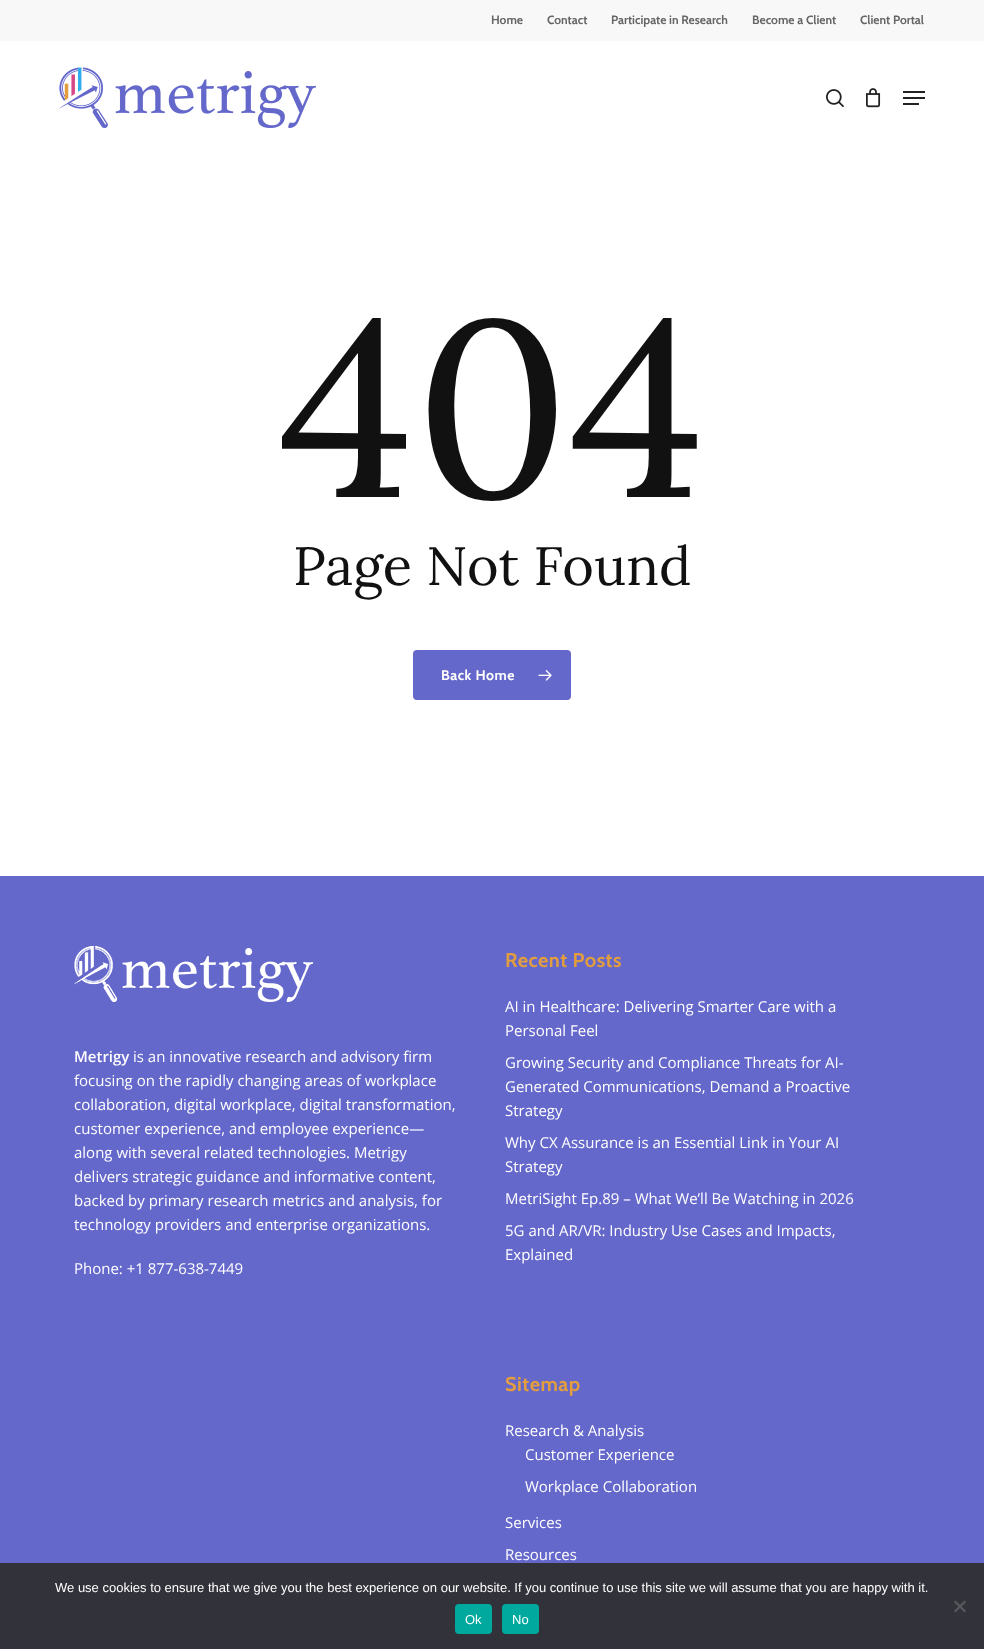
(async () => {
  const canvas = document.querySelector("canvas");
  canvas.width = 984;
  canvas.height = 1649;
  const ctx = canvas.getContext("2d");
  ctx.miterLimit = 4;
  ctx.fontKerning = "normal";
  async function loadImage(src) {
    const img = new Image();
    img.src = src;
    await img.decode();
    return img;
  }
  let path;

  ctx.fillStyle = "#ffffff";
  ctx.fillRect(0, 0, 984, 1649);
  ctx.fillStyle = "#f8f8f8";
  ctx.fillRect(0, 0, 984, 41);
  ctx.drawImage(await loadImage("img/1.png"), 59, 67, 257, 61);
  ctx.drawImage(await loadImage("img/2.png"), 826, 89, 18, 19);
  ctx.drawImage(await loadImage("img/3.png"), 866, 88, 15, 20);
  for (const [x, y, w, h, color] of [
    [903, 91, 22, 2, "#222222"],
    [903, 103, 16, 2, "#222222"],
    [903, 97, 22, 2, "#222222"],
  ]) {
    ctx.fillStyle = color;
    ctx.fillRect(x, y, w, h);
  }
  ctx.fillStyle = "#6568cb";
  ctx.beginPath();
  ctx.roundRect(413, 650, 158, 50, 4);
  ctx.fill();
  ctx.drawImage(await loadImage("img/4.png"), 538, 670, 14, 11);
  ctx.fillRect(0, 876, 984, 687);
  ctx.drawImage(await loadImage("img/5.png"), 74, 946, 239, 56);
  ctx.fillStyle = "#32323a";
  ctx.fillRect(0, 1563, 984, 86);
  ctx.fillStyle = "#59595d";
  path = new Path2D("M964.5 1600.5L966 1602L955.5 1612.5L954 1611Z");
  ctx.fill(path);
  path = new Path2D("M954 1602L955.5 1600.5L966 1611L964.5 1612.5Z");
  ctx.fill(path);
  ctx.fillStyle = "#00a99d";
  ctx.beginPath();
  ctx.roundRect(455, 1604, 37, 30, 4);
  ctx.fill();
  ctx.beginPath();
  ctx.roundRect(502, 1604, 37, 30, 4);
  ctx.fill();
  ctx.font = "bold 12px Cabin";
  ctx.fillStyle = "#666666";
  for (const [text, x, y] of [
    ["Home", 491, 24],
    ["Contact", 547, 24],
    ["Participate in Research", 611, 24],
    ["Become a Client", 752, 24],
    ["Client Portal", 860, 24],
  ]) {
    ctx.fillText(text, x, y);
  }
  ctx.font = "250px Lora";
  ctx.fillStyle = "#111111";
  ctx.fillText("404", 279, 497);
  ctx.font = "54px Lora";
  ctx.fillText("Page Not Found", 293, 585);
  ctx.letterSpacing = "0.5px";
  ctx.font = "bold 14px Cabin";
  ctx.fillStyle = "#ffffff";
  ctx.fillText("Back Home", 441, 680);
  ctx.letterSpacing = "0px";
  ctx.font = "600 15px Open Sans";
  ctx.fillText("Metrigy", 74, 1062);
  ctx.font = "15px Open Sans";
  for (const [text, x, y] of [
    ["is an innovative research and advisory firm", 133, 1062],
    ["focusing on the rapidly changing areas of workplace", 74, 1086],
    ["collaboration, digital workplace, digital transformation,", 74, 1110],
    ["customer experience, and employee experience—", 74, 1134],
    ["along with several related technologies. Metrigy", 74, 1158],
    ["delivers strategic guidance and informative content,", 74, 1182],
    ["backed by primary research metrics and analysis, for", 74, 1206],
    ["technology providers and enterprise organizations.", 74, 1230],
    ["Phone: +1 877-638-7449", 74, 1274],
  ]) {
    ctx.fillText(text, x, y);
  }
  ctx.letterSpacing = "0.5px";
  ctx.font = "bold 20px Cabin";
  ctx.fillStyle = "#e29d3e";
  ctx.fillText("Recent Posts", 505, 967);
  ctx.letterSpacing = "0px";
  ctx.font = "15px Open Sans";
  ctx.fillStyle = "#ffffff";
  for (const [text, x, y] of [
    ["AI in Healthcare: Delivering Smarter Care with a", 505, 1012],
    ["Personal Feel", 505, 1036],
    ["Growing Security and Compliance Threats for AI-", 505, 1068],
    ["Generated Communications, Demand a Proactive", 505, 1092],
    ["Strategy", 505, 1116],
    ["Why CX Assurance is an Essential Link in Your AI", 505, 1148],
    ["Strategy", 505, 1172],
    ["MetriSight Ep.89 – What We’ll Be Watching in 2026", 505, 1204],
    ["5G and AR/VR: Industry Use Cases and Impacts,", 505, 1236],
    ["Explained", 505, 1260],
  ]) {
    ctx.fillText(text, x, y);
  }
  ctx.letterSpacing = "0.5px";
  ctx.font = "bold 20px Cabin";
  ctx.fillStyle = "#e29d3e";
  ctx.fillText("Sitemap", 505, 1391);
  ctx.letterSpacing = "0px";
  ctx.font = "15px Open Sans";
  ctx.fillStyle = "#ffffff";
  for (const [text, x, y] of [
    ["Research & Analysis", 505, 1436],
    ["Customer Experience", 525, 1460],
    ["Workplace Collaboration", 525, 1492],
    ["Services", 505, 1528],
    ["Resources", 505, 1560],
  ]) {
    ctx.fillText(text, x, y);
  }
  ctx.font = "13px Liberation Sans";
  for (const [text, x, y] of [
    ["We use cookies to ensure that we give you the best experience on our website. If you continue to use this site we will assume that you are happy with it.", 55, 1592],
    ["Ok", 465, 1624],
    ["No", 512, 1624],
  ]) {
    ctx.fillText(text, x, y);
  }
})();
